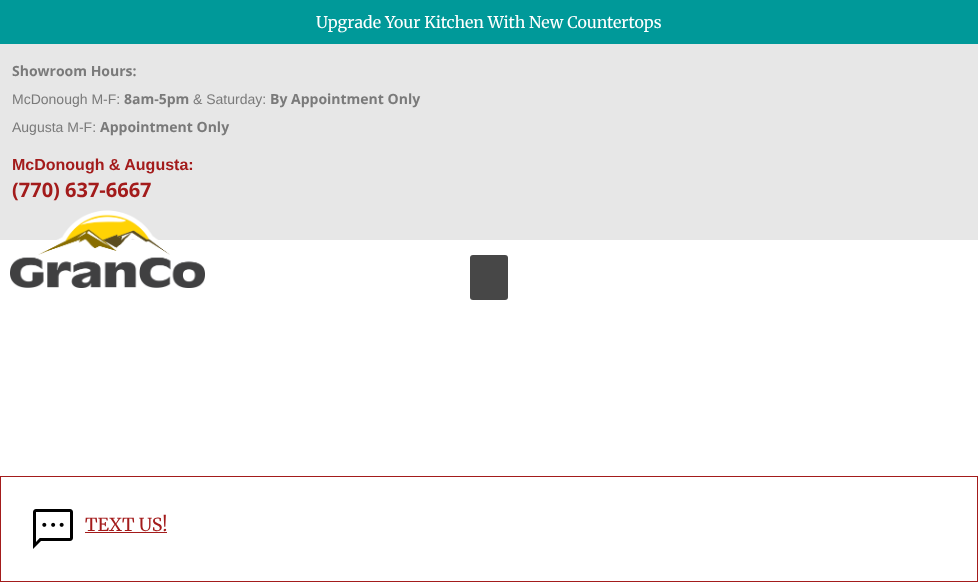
(async () => {
  const canvas = document.querySelector("canvas");
  canvas.width = 978;
  canvas.height = 582;
  const ctx = canvas.getContext("2d");
  ctx.miterLimit = 4;
  ctx.fontKerning = "normal";
  async function loadImage(src) {
    const img = new Image();
    img.src = src;
    await img.decode();
    return img;
  }

  ctx.fillStyle = "#ffffff";
  ctx.fillRect(0, 0, 978, 582);
  ctx.fillStyle = "#009999";
  ctx.fillRect(0, 0, 978, 44);
  ctx.fillStyle = "#e7e7e7";
  ctx.fillRect(0, 44, 978, 196);
  ctx.drawImage(await loadImage("img/1.png"), 10, 210, 195, 78);
  ctx.fillStyle = "#474747";
  ctx.beginPath();
  ctx.roundRect(470, 255, 38, 45, 3);
  ctx.fill();
  ctx.strokeStyle = "#a31b1b";
  ctx.strokeRect(0.5, 476.5, 977, 105);
  ctx.drawImage(await loadImage("img/2.png"), 33, 509, 40, 40);
  ctx.fillStyle = "#a31b1b";
  ctx.fillRect(85, 532, 82, 1);
  ctx.font = "16px Merriweather";
  ctx.fillStyle = "#ffffff";
  ctx.fillText("Upgrade Your Kitchen With New Countertops", 316, 28);
  ctx.font = "bold 14px Open Sans";
  ctx.fillStyle = "#7a7a7a";
  ctx.fillText("Showroom Hours:", 12, 76);
  ctx.font = "14px Liberation Sans";
  ctx.fillText("McDonough M-F:", 12, 104);
  ctx.font = "bold 14px Open Sans";
  ctx.fillText("8am-5pm", 124, 104);
  ctx.font = "14px Liberation Sans";
  ctx.fillText("& Saturday:", 193, 104);
  ctx.font = "bold 14px Open Sans";
  ctx.fillText("By Appointment Only", 270, 104);
  ctx.font = "14px Liberation Sans";
  ctx.fillText("Augusta M-F:", 12, 132);
  ctx.font = "bold 14px Open Sans";
  ctx.fillText("Appointment Only", 100, 132);
  ctx.font = "bold 16px Liberation Sans";
  ctx.fillStyle = "#a31b1b";
  ctx.fillText("McDonough & Augusta:", 12, 170);
  ctx.font = "bold 20px Open Sans";
  ctx.fillText("(770) 637-6667", 12, 197);
  ctx.font = "18px Merriweather";
  ctx.fillText("TEXT US!", 85, 531);
})();
